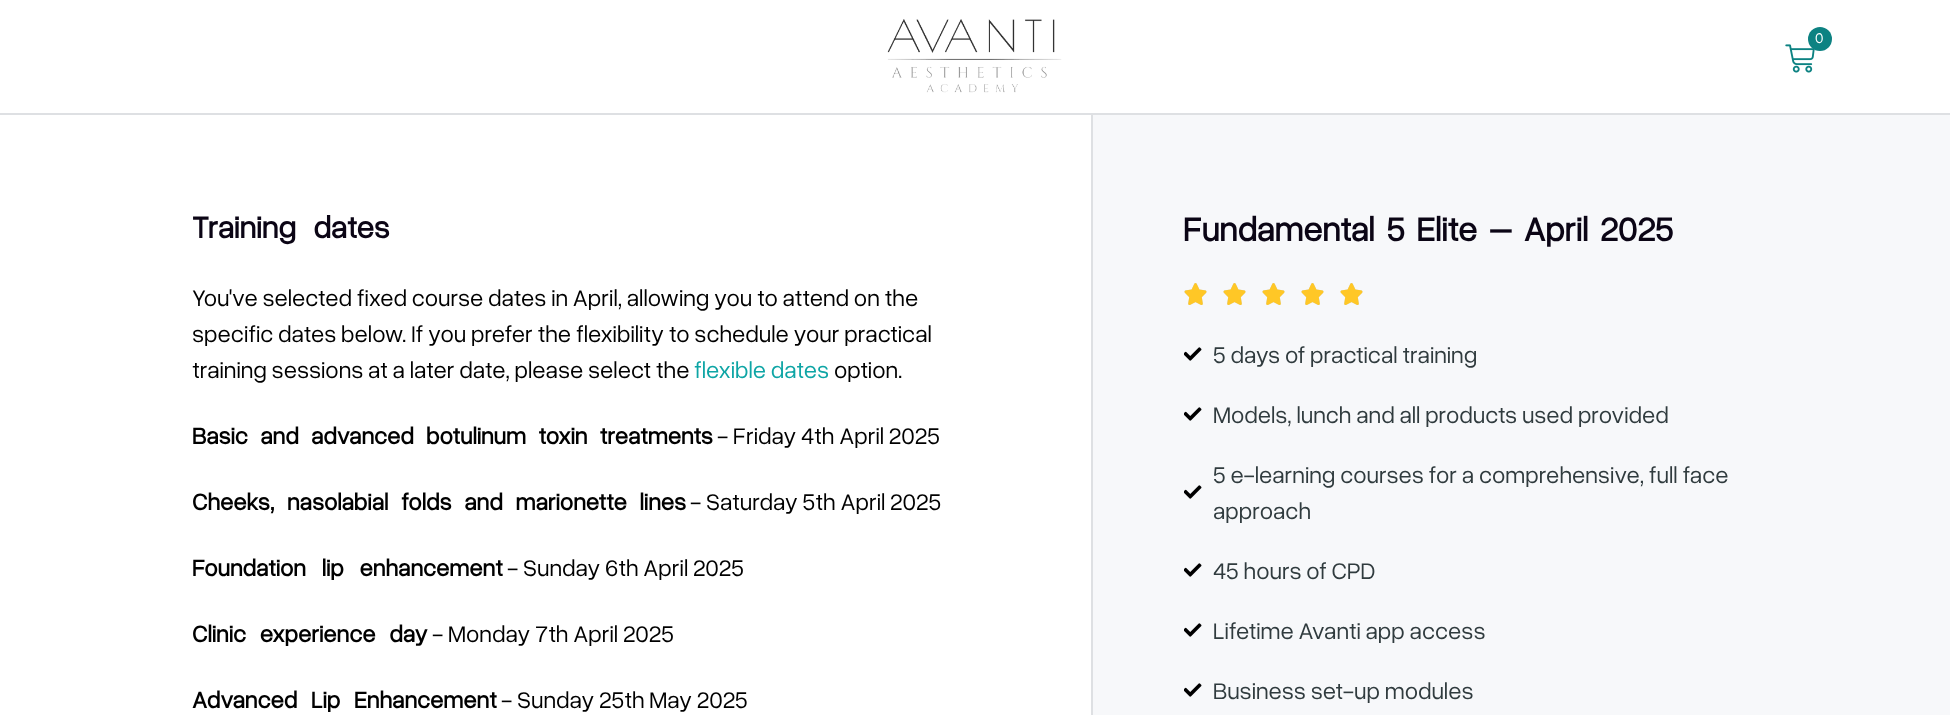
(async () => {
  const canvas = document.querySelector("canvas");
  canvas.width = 1950;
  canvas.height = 715;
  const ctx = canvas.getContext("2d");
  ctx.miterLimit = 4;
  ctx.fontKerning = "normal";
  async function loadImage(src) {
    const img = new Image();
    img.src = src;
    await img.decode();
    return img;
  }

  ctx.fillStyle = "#ffffff";
  ctx.fillRect(0, 0, 1950, 715);
  ctx.fillStyle = "#dee0e3";
  ctx.fillRect(1091, 114, 2, 601);
  ctx.fillRect(0, 113, 1950, 2);
  ctx.drawImage(await loadImage("img/1.png"), 887, 19, 175, 74);
  ctx.drawImage(await loadImage("img/2.png"), 1785, 44, 30, 29);
  ctx.fillStyle = "#0d8282";
  ctx.beginPath();
  ctx.arc(1820, 39, 12, 0, Math.PI * 2);
  ctx.fill();
  ctx.fillStyle = "#f7f8fa";
  ctx.fillRect(1093, 115, 857, 600);
  ctx.drawImage(await loadImage("img/3.png"), 1184, 283, 23, 22);
  ctx.drawImage(await loadImage("img/4.png"), 1184, 283, 23, 22);
  ctx.drawImage(await loadImage("img/3.png"), 1223, 283, 23, 22);
  ctx.drawImage(await loadImage("img/4.png"), 1223, 283, 23, 22);
  ctx.drawImage(await loadImage("img/3.png"), 1262, 283, 23, 22);
  ctx.drawImage(await loadImage("img/4.png"), 1262, 283, 23, 22);
  ctx.drawImage(await loadImage("img/3.png"), 1301, 283, 23, 22);
  ctx.drawImage(await loadImage("img/4.png"), 1301, 283, 23, 22);
  ctx.drawImage(await loadImage("img/3.png"), 1340, 283, 23, 22);
  ctx.drawImage(await loadImage("img/4.png"), 1340, 283, 23, 22);
  ctx.drawImage(await loadImage("img/5.png"), 1184, 347, 18, 14);
  ctx.drawImage(await loadImage("img/5.png"), 1184, 407, 18, 14);
  ctx.drawImage(await loadImage("img/5.png"), 1184, 485, 18, 14);
  ctx.drawImage(await loadImage("img/5.png"), 1184, 563, 18, 14);
  ctx.drawImage(await loadImage("img/5.png"), 1184, 623, 18, 14);
  ctx.drawImage(await loadImage("img/5.png"), 1184, 683, 18, 14);
  ctx.font = "15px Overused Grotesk";
  ctx.fillStyle = "#ffffff";
  ctx.fillText("0", 1815, 43);
  ctx.wordSpacing = "11px";
  ctx.font = "bold 31.5px Overused Grotesk";
  ctx.fillStyle = "#0b0515";
  ctx.fillText("Training dates", 192, 238);
  ctx.wordSpacing = "0px";
  ctx.font = "24px Overused Grotesk";
  ctx.fillStyle = "#000000";
  for (const [text, x, y] of [
    ["You've selected fixed course dates in April, allowing you to attend on the", 192, 306],
    ["specific dates below. If you prefer the flexibility to schedule your practical", 192, 342],
    ["training sessions at a later date, please select the", 192, 378],
  ]) {
    ctx.fillText(text, x, y);
  }
  ctx.fillStyle = "#0ea5a5";
  ctx.fillText("flexible dates", 694, 378);
  ctx.fillStyle = "#000000";
  ctx.fillText("option.", 834, 378);
  ctx.wordSpacing = "7.5px";
  ctx.font = "bold 24px Overused Grotesk";
  ctx.fillText("Basic and advanced botulinum toxin treatments", 192, 444);
  ctx.wordSpacing = "0px";
  ctx.font = "24px Overused Grotesk";
  ctx.fillText("- Friday 4th April 2025", 717, 444);
  ctx.wordSpacing = "8px";
  ctx.font = "bold 24px Overused Grotesk";
  ctx.fillText("Cheeks, nasolabial folds and marionette lines", 192, 510);
  ctx.wordSpacing = "0px";
  ctx.font = "24px Overused Grotesk";
  ctx.fillText("- Saturday 5th April 2025", 690, 510);
  ctx.wordSpacing = "11px";
  ctx.font = "bold 24px Overused Grotesk";
  ctx.fillText("Foundation lip enhancement", 192, 576);
  ctx.wordSpacing = "0px";
  ctx.font = "24px Overused Grotesk";
  ctx.fillText("- Sunday 6th April 2025", 507, 576);
  ctx.wordSpacing = "9px";
  ctx.font = "bold 24px Overused Grotesk";
  ctx.fillText("Clinic experience day", 192, 642);
  ctx.wordSpacing = "0px";
  ctx.font = "24px Overused Grotesk";
  ctx.fillText("- Monday 7th April 2025", 432, 642);
  ctx.wordSpacing = "9px";
  ctx.font = "bold 24px Overused Grotesk";
  ctx.fillText("Advanced Lip Enhancement", 192, 708);
  ctx.wordSpacing = "0px";
  ctx.font = "24px Overused Grotesk";
  ctx.fillText("- Sunday 25th May 2025", 501, 708);
  ctx.wordSpacing = "5px";
  ctx.font = "bold 34.5px Overused Grotesk";
  ctx.fillStyle = "#0b0515";
  ctx.fillText("Fundamental 5 Elite – April 2025", 1183, 241);
  ctx.wordSpacing = "0px";
  ctx.font = "24px Overused Grotesk";
  ctx.fillStyle = "#303b3e";
  for (const [text, x, y] of [
    ["5 days of practical training", 1213, 363],
    ["Models, lunch and all products used provided", 1213, 423],
    ["5 e-learning courses for a comprehensive, full face", 1213, 483],
    ["approach", 1213, 519],
    ["45 hours of CPD", 1213, 579],
    ["Lifetime Avanti app access", 1213, 639],
    ["Business set-up modules", 1213, 699],
  ]) {
    ctx.fillText(text, x, y);
  }
})();
